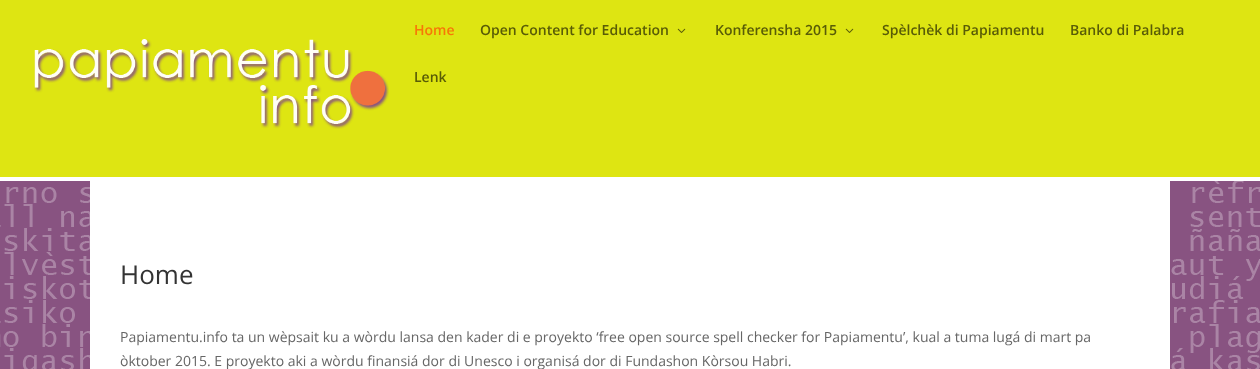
(async () => {
  const canvas = document.querySelector("canvas");
  canvas.width = 1260;
  canvas.height = 369;
  const ctx = canvas.getContext("2d");
  ctx.miterLimit = 4;
  ctx.fontKerning = "normal";
  async function loadImage(src) {
    const img = new Image();
    img.src = src;
    await img.decode();
    return img;
  }

  ctx.fillStyle = "#ffffff";
  ctx.fillRect(0, 0, 1260, 369);
  ctx.fillStyle = "#dee512";
  ctx.fillRect(0, 0, 1260, 177);
  ctx.drawImage(await loadImage("img/1.png"), 34, 39, 355, 90);
  ctx.drawImage(await loadImage("img/2.png"), 677, 28, 9, 5);
  ctx.drawImage(await loadImage("img/2.png"), 845, 28, 9, 5);
  ctx.fillStyle = "#885381";
  ctx.fillRect(0, 181, 1260, 188);
  ctx.drawImage(await loadImage("img/3.png"), 0, 181, 1260, 188);
  ctx.fillStyle = "#ffffff";
  ctx.fillRect(90, 181, 1080, 188);
  ctx.font = "600 14px Open Sans";
  ctx.fillStyle = "#f77707";
  ctx.fillText("Home", 414, 35);
  ctx.fillStyle = "#595c07";
  for (const [text, x, y] of [
    ["Open Content for Education", 480, 35],
    ["Konferensha 2015", 715, 35],
    ["Spèlchèk di Papiamentu", 882, 35],
    ["Banko di Palabra", 1070, 35],
    ["Lenk", 414, 82],
  ]) {
    ctx.fillText(text, x, y);
  }
  ctx.font = "26px Open Sans";
  ctx.fillStyle = "#333333";
  ctx.fillText("Home", 120, 284);
  ctx.font = "14px Open Sans";
  ctx.fillStyle = "#666666";
  ctx.fillText("Papiamentu.info ta un wèpsait ku a wòrdu lansa den kader di e proyekto ‘free open source spell checker for Papiamentu’, kual a tuma lugá di mart pa", 120, 342);
  ctx.fillText("òktober 2015. E proyekto aki a wòrdu finansiá dor di Unesco i organisá dor di Fundashon Kòrsou Habri.", 120, 366);
})();
